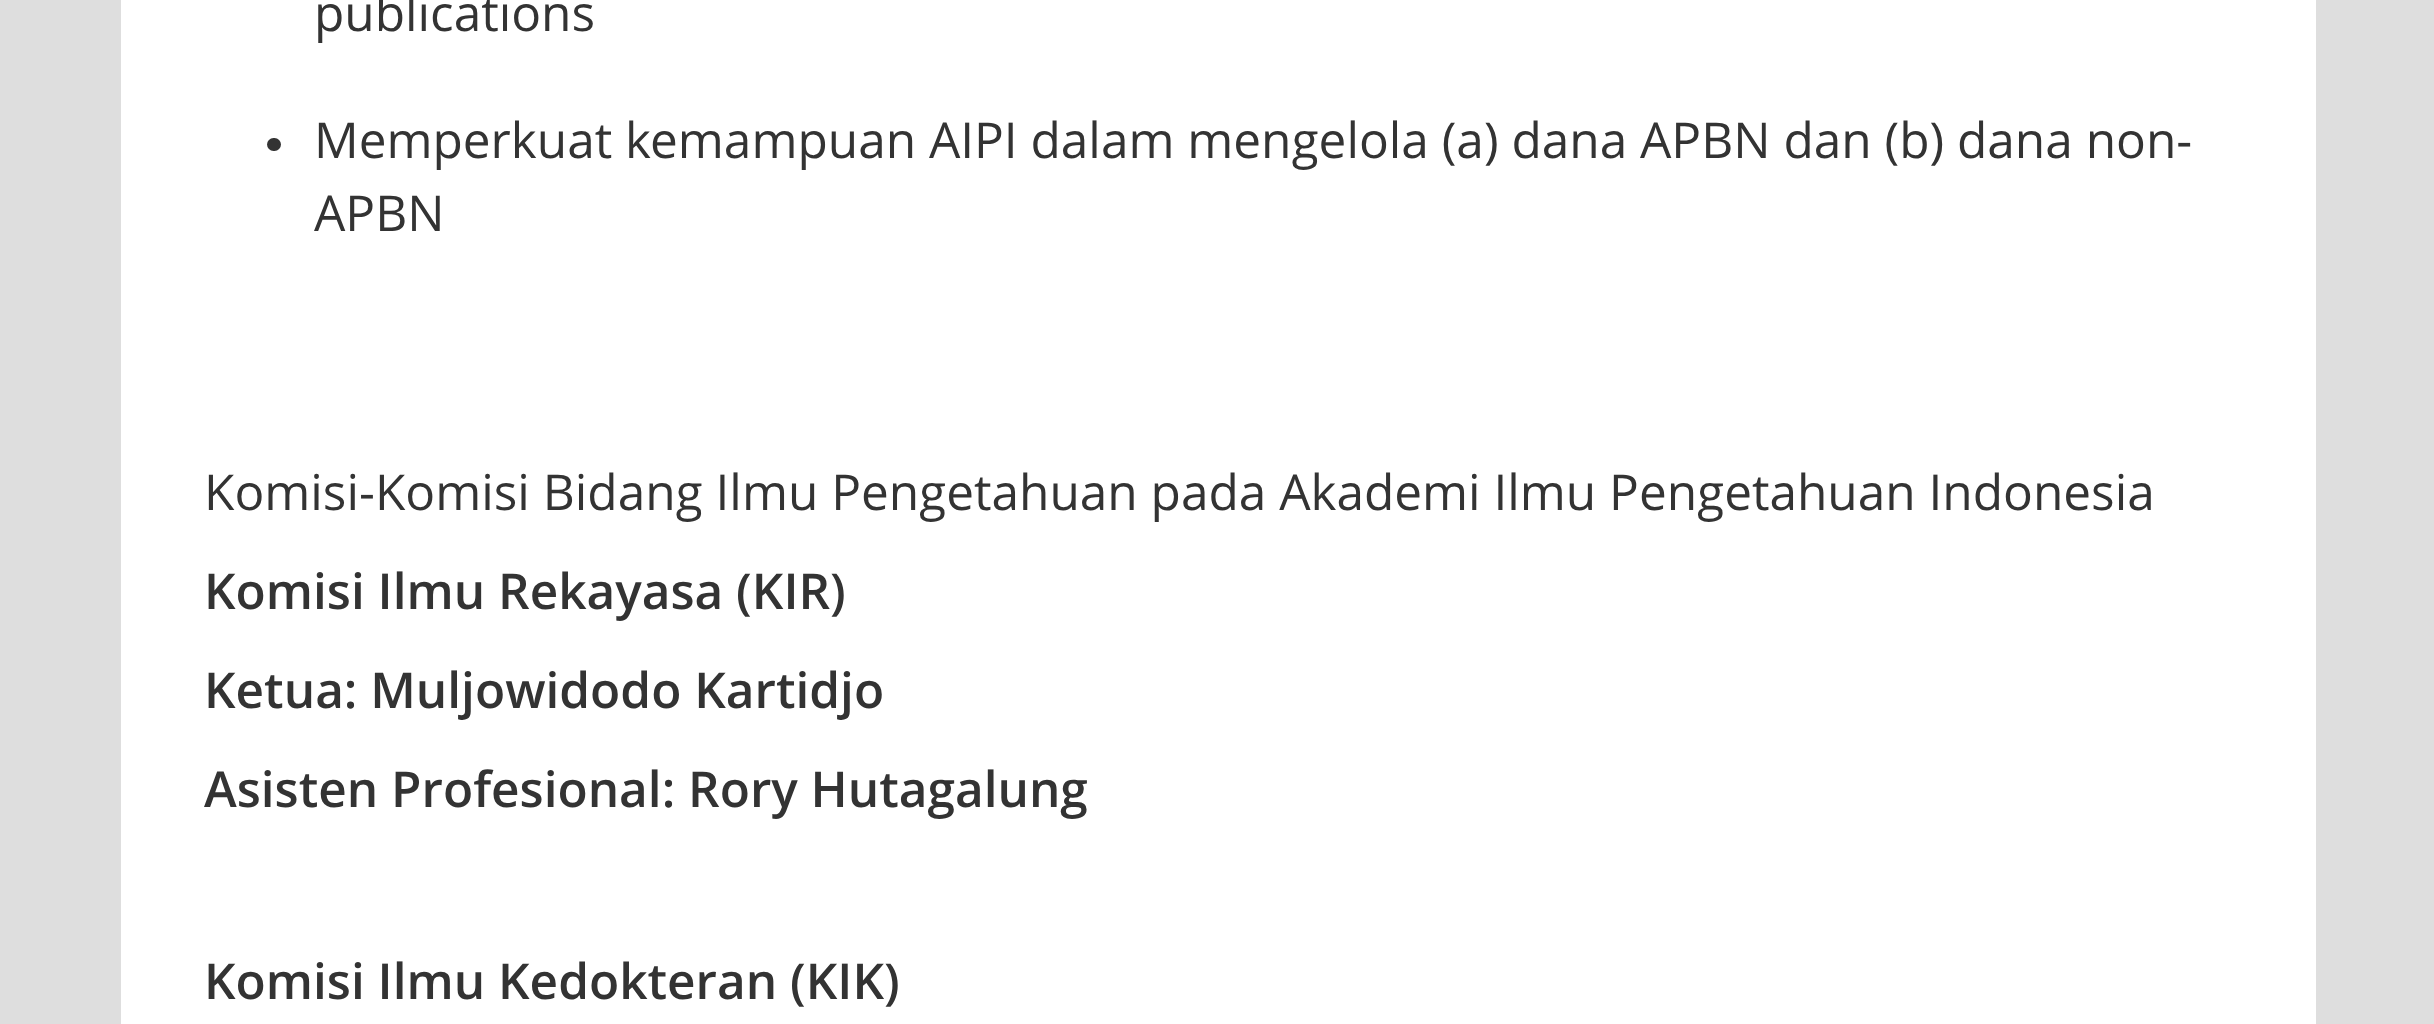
(async () => {
  const canvas = document.querySelector("canvas");
  canvas.width = 2434;
  canvas.height = 1024;
  const ctx = canvas.getContext("2d");
  ctx.miterLimit = 4;
  ctx.fontKerning = "normal";

  ctx.fillStyle = "#dedede";
  ctx.fillRect(0, 0, 2434, 1024);
  ctx.fillStyle = "#ffffff";
  ctx.fillRect(121, 0, 2195, 1024);
  ctx.fillStyle = "#333333";
  ctx.beginPath();
  ctx.roundRect(267, 138, 14, 13, 6.5);
  ctx.fill();
  ctx.font = "49.5px Open Sans";
  for (const [text, x, y] of [
    ["publications", 314, 31],
    ["Memperkuat kemampuan AIPI dalam mengelola (a) dana APBN dan (b) dana non-", 314, 158],
    ["APBN", 314, 231],
    ["Komisi-Komisi Bidang Ilmu Pengetahuan pada Akademi Ilmu Pengetahuan Indonesia", 204, 510],
  ]) {
    ctx.fillText(text, x, y);
  }
  ctx.font = "600 49.5px Open Sans";
  for (const [text, x, y] of [
    ["Komisi Ilmu Rekayasa (KIR)", 204, 609],
    ["Ketua: Muljowidodo Kartidjo", 204, 708],
    ["Asisten Profesional: Rory Hutagalung", 204, 807],
    ["Komisi Ilmu Kedokteran (KIK)", 204, 999],
  ]) {
    ctx.fillText(text, x, y);
  }
})();
